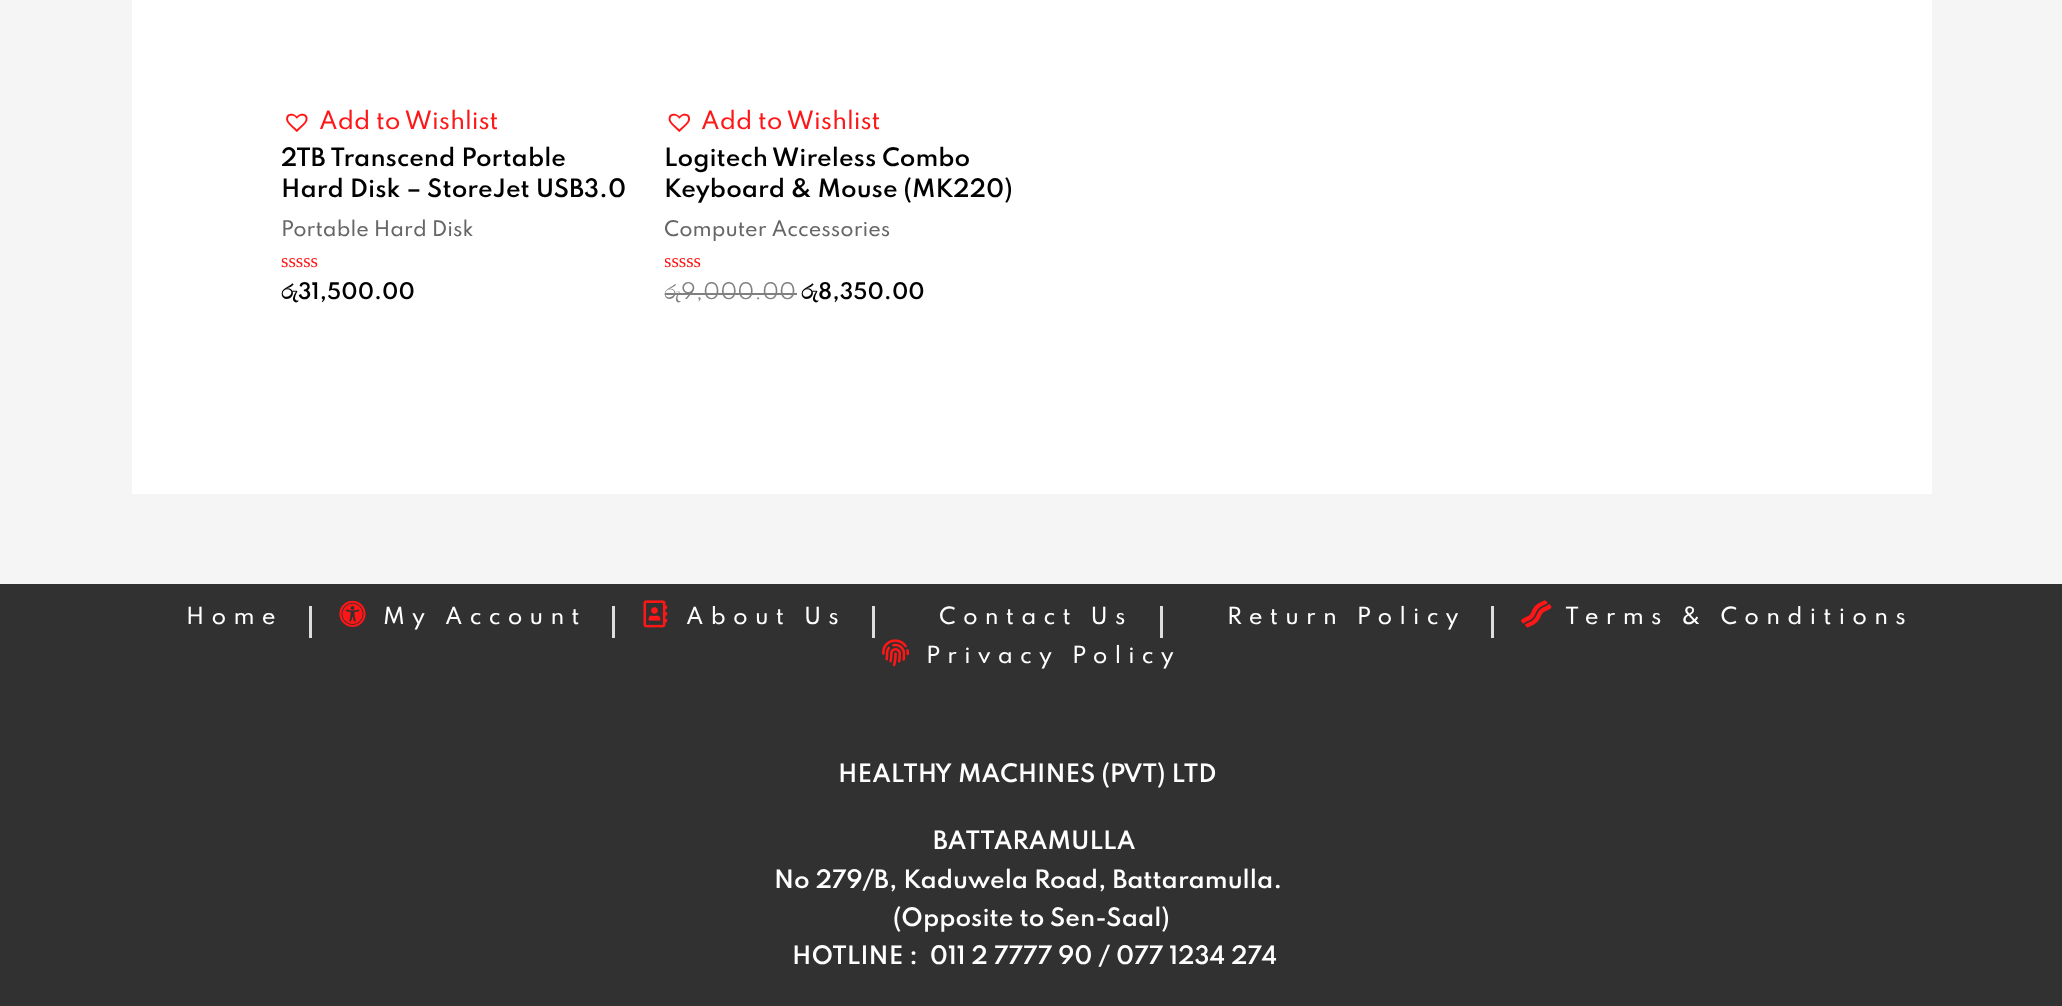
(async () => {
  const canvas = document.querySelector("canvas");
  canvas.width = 2062;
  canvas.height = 1006;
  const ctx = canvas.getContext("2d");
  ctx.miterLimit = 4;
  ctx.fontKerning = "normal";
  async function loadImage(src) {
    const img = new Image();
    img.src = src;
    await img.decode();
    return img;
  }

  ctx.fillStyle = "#f5f5f5";
  ctx.fillRect(0, 0, 2062, 1006);
  ctx.fillStyle = "#ffffff";
  ctx.fillRect(132, 0, 1800, 494);
  ctx.drawImage(await loadImage("img/1.png"), 286, 113, 22, 19);
  ctx.drawImage(await loadImage("img/2.png"), 668, 113, 22, 19);
  for (const [x, y, w, h, color] of [
    [665, 293, 16, 2, "#808080"],
    [681, 293, 116, 2, "#808080"],
    [0, 584, 2062, 422, "#313131"],
    [309, 606, 3, 32, "#dddddd"],
  ]) {
    ctx.fillStyle = color;
    ctx.fillRect(x, y, w, h);
  }
  ctx.drawImage(await loadImage("img/3.png"), 339, 600, 27, 27);
  ctx.fillRect(612, 606, 3, 32);
  ctx.drawImage(await loadImage("img/4.png"), 643, 600, 25, 28);
  for (const [x, y, w, h, color] of [
    [872, 606, 3, 32, "#dddddd"],
    [1160, 606, 3, 32, "#dddddd"],
    [1491, 606, 3, 32, "#dddddd"],
  ]) {
    ctx.fillStyle = color;
    ctx.fillRect(x, y, w, h);
  }
  ctx.drawImage(await loadImage("img/5.png"), 1521, 600, 31, 28);
  ctx.drawImage(await loadImage("img/6.png"), 882, 639, 28, 28);
  ctx.font = "500 22.5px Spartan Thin";
  ctx.fillStyle = "#ff1616";
  ctx.fillText("Add to Wishlist", 319, 129);
  ctx.font = "600 22.5px Spartan Thin";
  ctx.fillStyle = "#000000";
  ctx.fillText("2TB Transcend Portable", 281, 166);
  ctx.fillText("Hard Disk – StoreJet USB3.0", 281, 197);
  ctx.font = "500 19.1px Spartan Thin";
  ctx.fillStyle = "#666666";
  ctx.fillText("Portable Hard Disk", 281, 236);
  ctx.font = "19px Liberation Serif";
  ctx.fillStyle = "#ff1616";
  ctx.fillText("sssss", 281, 267);
  ctx.font = "bold 20.25px FreeSerif";
  ctx.fillStyle = "#000000";
  ctx.fillText("රු", 281, 299);
  ctx.font = "600 20.25px Spartan Thin";
  ctx.fillText("31,500.00", 298, 299);
  ctx.font = "500 22.5px Spartan Thin";
  ctx.fillStyle = "#ff1616";
  ctx.fillText("Add to Wishlist", 701, 129);
  ctx.font = "600 22.5px Spartan Thin";
  ctx.fillStyle = "#000000";
  ctx.fillText("Logitech Wireless Combo", 664, 166);
  ctx.fillText("Keyboard & Mouse (MK220)", 664, 197);
  ctx.font = "500 19.1px Spartan Thin";
  ctx.fillStyle = "#666666";
  ctx.fillText("Computer Accessories", 664, 236);
  ctx.save();
  ctx.beginPath();
  ctx.rect(665, 252, 103, 20);
  ctx.clip();
  ctx.font = "19px Liberation Serif";
  ctx.fillStyle = "#ff1616";
  ctx.fillText("sssss", 664, 267);
  ctx.restore();
  ctx.font = "20.25px FreeSerif";
  ctx.fillStyle = "#808080";
  ctx.fillText("රු", 664, 299);
  ctx.font = "20.25px Spartan Thin";
  ctx.fillText("9,000.00", 681, 299);
  ctx.font = "bold 20.25px FreeSerif";
  ctx.fillStyle = "#000000";
  ctx.fillText("රු", 801, 299);
  ctx.font = "600 20.25px Spartan Thin";
  ctx.fillText("8,350.00", 818, 299);
  ctx.letterSpacing = "7.25px";
  ctx.font = "500 21px Spartan Thin";
  ctx.fillStyle = "#ffffff";
  for (const [text, x, y] of [
    ["Home", 186, 624],
    ["My Account", 383, 624],
    ["About Us", 686, 624],
    ["Contact Us", 939, 624],
    ["Return Policy", 1227, 624],
    ["Terms & Conditions", 1565, 624],
    ["Privacy Policy", 926, 663],
  ]) {
    ctx.fillText(text, x, y);
  }
  ctx.letterSpacing = "0px";
  ctx.font = "600 22.5px Spartan Thin";
  for (const [text, x, y] of [
    ["HEALTHY MACHINES (PVT) LTD", 838, 782],
    ["BATTARAMULLA", 933, 849],
    ["No 279/B, Kaduwela Road, Battaramulla.", 774, 888],
    ["(Opposite to Sen-Saal)", 893, 926],
    ["HOTLINE :  011 2 7777 90 / 077 1234 274", 792, 964],
  ]) {
    ctx.fillText(text, x, y);
  }
})();
